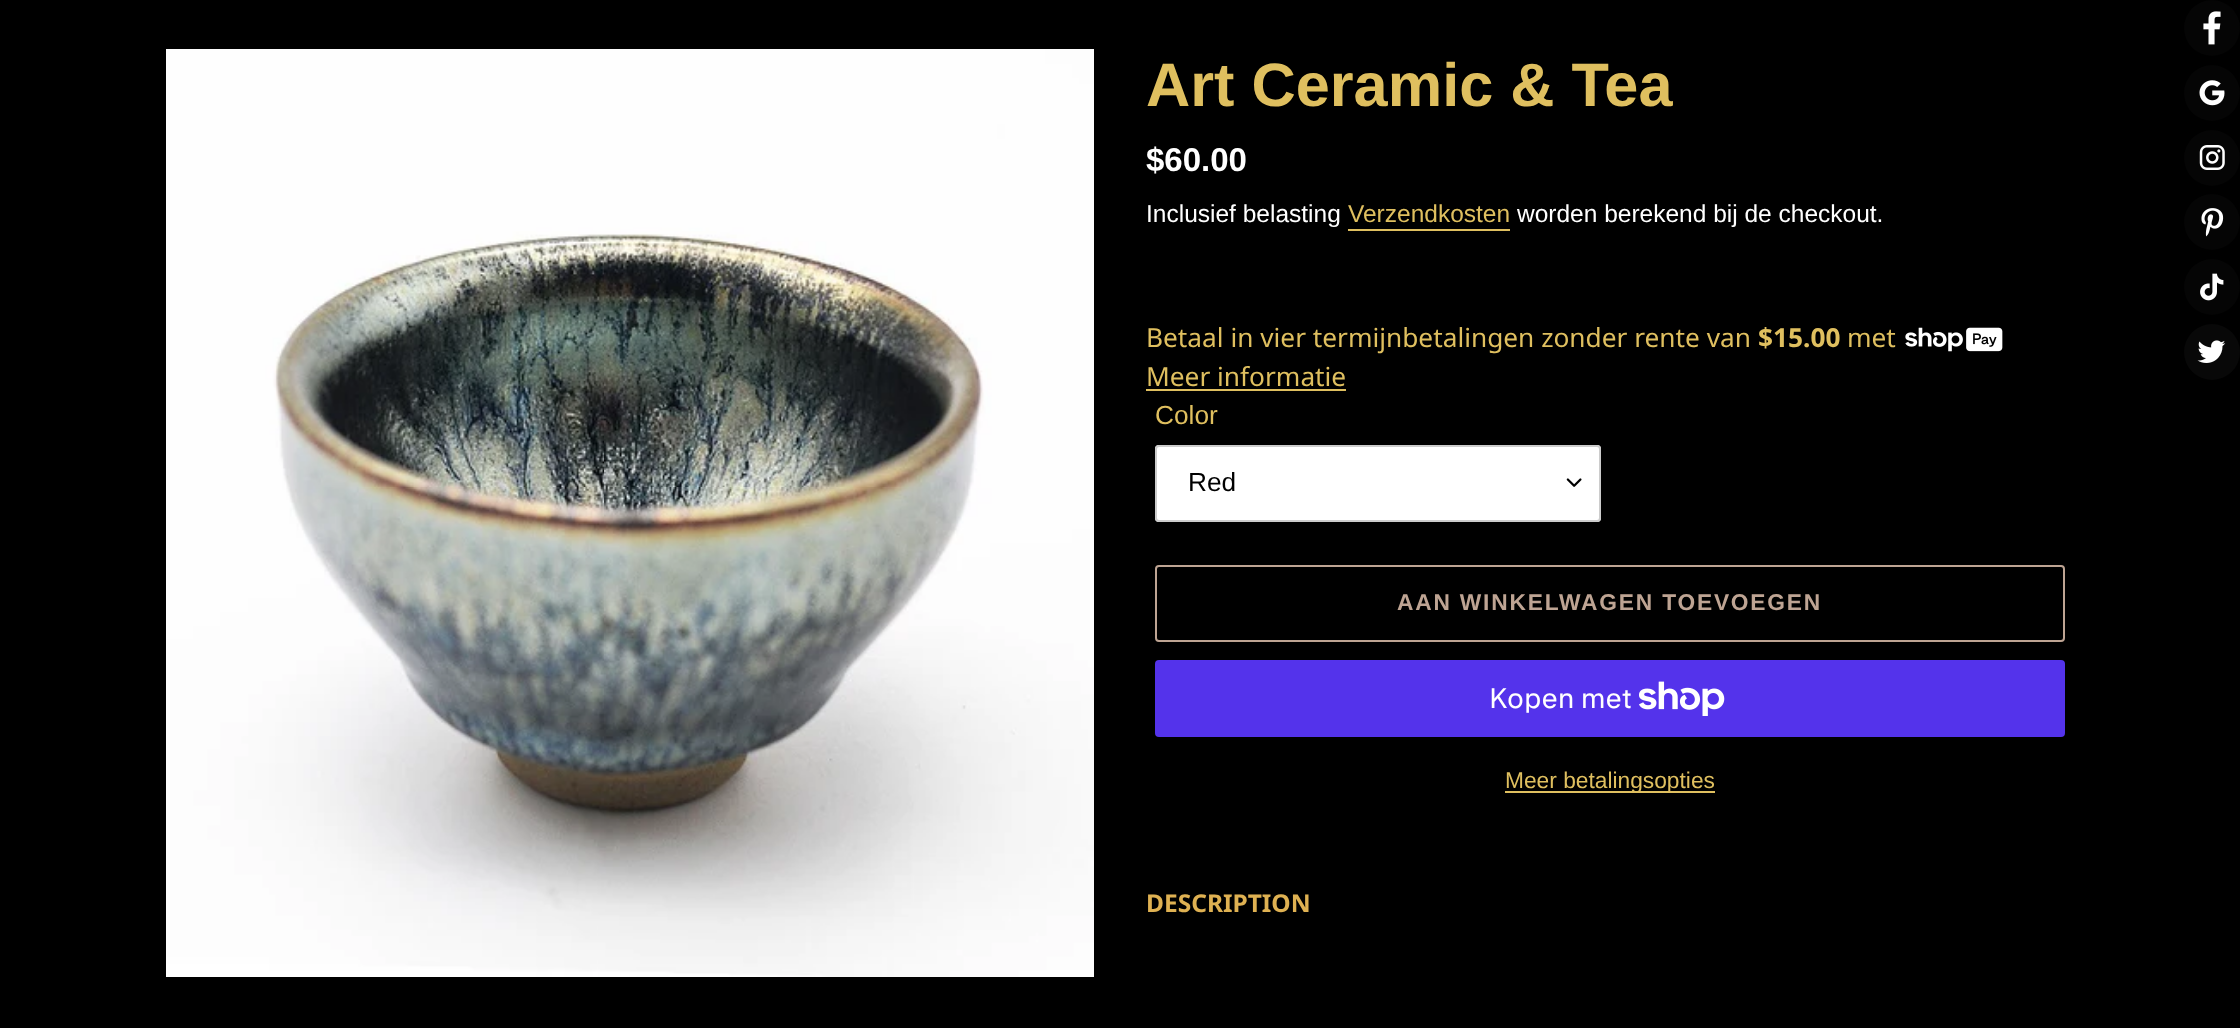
(async () => {
  const canvas = document.querySelector("canvas");
  canvas.width = 2240;
  canvas.height = 1028;
  const ctx = canvas.getContext("2d");
  ctx.miterLimit = 4;
  ctx.fontKerning = "normal";
  async function loadImage(src) {
    const img = new Image();
    img.src = src;
    await img.decode();
    return img;
  }

  ctx.fillStyle = "#000000";
  ctx.fillRect(0, 0, 2240, 1028);
  ctx.drawImage(await loadImage("img/1.png"), 166, 49, 928, 928);
  ctx.fillStyle = "#dfbf5f";
  ctx.fillRect(1348, 229, 162, 2);
  ctx.drawImage(await loadImage("img/2.png"), 1905, 327, 98, 25);
  ctx.fillRect(1146, 389, 200, 2);
  ctx.fillStyle = "#ffffff";
  ctx.beginPath();
  ctx.roundRect(1155, 445, 446, 77, 4);
  ctx.fill();
  ctx.drawImage(await loadImage("img/3.png"), 1566, 478, 16, 9);
  ctx.beginPath();
  ctx.roundRect(1156, 446, 444, 75, 3);
  ctx.strokeStyle = "#cccccc";
  ctx.lineWidth = 2;
  ctx.stroke();
  ctx.beginPath();
  ctx.roundRect(1156, 566, 908, 75, 3);
  ctx.strokeStyle = "#bea493";
  ctx.stroke();
  ctx.fillStyle = "#5433eb";
  ctx.beginPath();
  ctx.roundRect(1155, 660, 910, 77, 4);
  ctx.fill();
  ctx.drawImage(await loadImage("img/4.png"), 1639, 681, 86, 35);
  ctx.fillStyle = "#dfbf5f";
  ctx.fillRect(1505, 791, 210, 2);
  ctx.fillStyle = "#050505";
  ctx.beginPath();
  ctx.arc(2212, 28, 28, 0, Math.PI * 2);
  ctx.fill();
  ctx.drawImage(await loadImage("img/5.png"), 2203, 11, 18, 34);
  ctx.beginPath();
  ctx.arc(2212, 93, 28, 0, Math.PI * 2);
  ctx.fill();
  ctx.drawImage(await loadImage("img/6.png"), 2199, 80, 26, 26);
  ctx.beginPath();
  ctx.arc(2212, 158, 28, 0, Math.PI * 2);
  ctx.fill();
  ctx.drawImage(await loadImage("img/7.png"), 2199, 145, 26, 25);
  ctx.beginPath();
  ctx.arc(2212, 222, 28, 0, Math.PI * 2);
  ctx.fill();
  ctx.drawImage(await loadImage("img/8.png"), 2201, 208, 23, 29);
  ctx.beginPath();
  ctx.arc(2212, 287, 28, 0, Math.PI * 2);
  ctx.fill();
  ctx.drawImage(await loadImage("img/9.png"), 2200, 273, 24, 28);
  ctx.fillStyle = "#080808";
  ctx.beginPath();
  ctx.arc(2212, 352, 28, 0, Math.PI * 2);
  ctx.fill();
  ctx.drawImage(await loadImage("img/10.png"), 2197, 340, 29, 23);
  ctx.font = "bold 61.25px Liberation Sans";
  ctx.fillStyle = "#dfbf5f";
  ctx.fillText("Art Ceramic & Tea", 1146, 106);
  ctx.font = "bold 33px Liberation Sans";
  ctx.fillStyle = "#ffffff";
  ctx.fillText("$60.00", 1146, 171);
  ctx.font = "24.5px Liberation Sans";
  ctx.fillText("Inclusief belasting", 1146, 222);
  ctx.fillStyle = "#dfbf5f";
  ctx.fillText("Verzendkosten", 1348, 222);
  ctx.fillStyle = "#ffffff";
  ctx.fillText("worden berekend bij de checkout.", 1517, 222);
  ctx.font = "26.25px Noto Sans";
  ctx.fillStyle = "#dfbf5f";
  ctx.fillText("Betaal in vier termijnbetalingen zonder rente van", 1146, 347);
  ctx.font = "bold 26.25px Noto Sans";
  ctx.fillText("$15.00", 1758, 347);
  ctx.font = "26.25px Noto Sans";
  ctx.fillText("met", 1847, 347);
  ctx.fillText("Meer informatie", 1146, 386);
  ctx.font = "26.25px Liberation Sans";
  ctx.fillText("Color", 1155, 424);
  ctx.fillStyle = "#000000";
  ctx.fillText("Red", 1188, 491);
  ctx.letterSpacing = "1.8px";
  ctx.font = "bold 22.75px Liberation Sans";
  ctx.fillStyle = "#bea493";
  ctx.fillText("AAN WINKELWAGEN TOEVOEGEN", 1397, 610);
  ctx.letterSpacing = "0px";
  ctx.font = "28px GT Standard";
  ctx.fillStyle = "#ffffff";
  ctx.fillText("Kopen met", 1489, 708);
  ctx.font = "22.75px Liberation Sans";
  ctx.fillStyle = "#dfbf5f";
  ctx.fillText("Meer betalingsopties", 1505, 788);
  ctx.font = "bold 24.5px Noto Sans";
  ctx.fillStyle = "#dfb152";
  ctx.fillText("DESCRIPTION", 1146, 912);
})();
